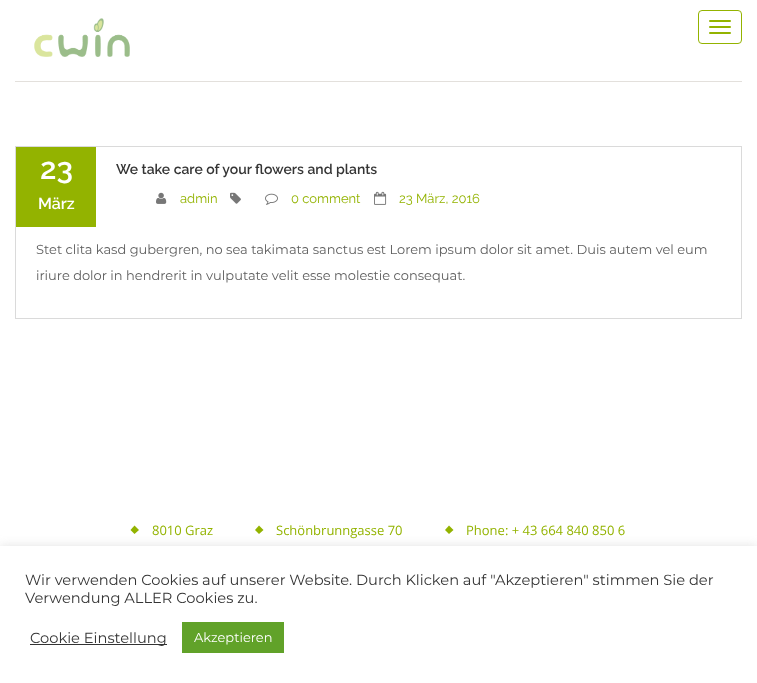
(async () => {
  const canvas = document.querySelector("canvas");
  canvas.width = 757;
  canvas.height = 683;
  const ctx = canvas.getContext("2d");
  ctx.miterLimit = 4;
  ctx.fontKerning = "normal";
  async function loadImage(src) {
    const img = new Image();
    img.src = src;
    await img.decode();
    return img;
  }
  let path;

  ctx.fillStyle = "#ffffff";
  ctx.fillRect(0, 0, 757, 683);
  ctx.drawImage(await loadImage("img/1.png"), 34, 18, 96, 39);
  ctx.beginPath();
  ctx.roundRect(698.5, 10.5, 43, 33, 3.5);
  ctx.strokeStyle = "#93b300";
  ctx.stroke();
  ctx.fillStyle = "#93b300";
  ctx.beginPath();
  ctx.roundRect(709, 20, 22, 2, 1);
  ctx.fill();
  ctx.beginPath();
  ctx.roundRect(709, 26, 22, 2, 1);
  ctx.fill();
  ctx.beginPath();
  ctx.roundRect(709, 32, 22, 2, 1);
  ctx.fill();
  ctx.fillStyle = "#e3e0dc";
  ctx.fillRect(15, 81, 727, 1);
  ctx.strokeStyle = "#dadada";
  ctx.strokeRect(15.5, 146.5, 726, 172);
  ctx.fillStyle = "#93b300";
  ctx.fillRect(16, 147, 80, 80);
  ctx.drawImage(await loadImage("img/2.png"), 156, 192, 11, 12);
  ctx.drawImage(await loadImage("img/3.png"), 230, 192, 11, 12);
  ctx.drawImage(await loadImage("img/4.png"), 265, 193, 13, 12);
  ctx.drawImage(await loadImage("img/5.png"), 374, 191, 13, 14);
  path = new Path2D("M134.5 525.5L139 530L134.5 534L130.5 530Z");
  ctx.fill(path);
  path = new Path2D("M259 525.5L263.5 530L259 534L255 530Z");
  ctx.fill(path);
  path = new Path2D("M449 525.5L453.5 530L449 534L445 530Z");
  ctx.fill(path);
  ctx.fillStyle = "rgba(172, 171, 171, 0.3)";
  ctx.filter = "blur(5px)";
  ctx.beginPath();
  ctx.rect(0, 545, 757, 137);
  ctx.fill();
  ctx.filter = "none";
  for (const [x, y, w, h, color] of [
    [0, 546, 757, 137, "#ffffff"],
    [30, 644, 137, 1, "#333333"],
    [182, 622, 102, 31, "#61a229"],
  ]) {
    ctx.fillStyle = color;
    ctx.fillRect(x, y, w, h);
  }
  ctx.font = "600 30px Raleway";
  ctx.fillStyle = "#ffffff";
  ctx.fillText("23", 40, 179);
  ctx.font = "600 16px Raleway";
  ctx.fillText("März", 38, 209);
  ctx.font = "600 14px Raleway";
  ctx.fillStyle = "#353535";
  ctx.fillText("We take care of your flowers and plants", 116, 174);
  ctx.font = "13px Raleway";
  ctx.fillStyle = "#93b300";
  for (const [text, x, y] of [
    ["admin", 180, 203],
    ["0 comment", 291, 203],
    ["23 März, 2016", 399, 203],
  ]) {
    ctx.fillText(text, x, y);
  }
  ctx.font = "13px Montserrat";
  ctx.fillStyle = "#5f5f5f";
  ctx.fillText("Stet clita kasd gubergren, no sea takimata sanctus est Lorem ipsum dolor sit amet. Duis autem vel eum", 36, 254);
  ctx.fillText("iriure dolor in hendrerit in vulputate velit esse molestie consequat.", 36, 280);
  ctx.font = "13px Open Sans";
  ctx.fillStyle = "#93b300";
  for (const [text, x, y] of [
    ["8010 Graz", 152, 535],
    ["Schönbrunngasse 70", 276, 535],
    ["Phone: + 43 664 840 850 6", 466, 535],
  ]) {
    ctx.fillText(text, x, y);
  }
  ctx.font = "14.65px Montserrat";
  ctx.fillStyle = "#353535";
  for (const [text, x, y] of [
    ["Wir verwenden Cookies auf unserer Website. Durch Klicken auf \"Akzeptieren\" stimmen Sie der", 25, 585],
    ["Verwendung ALLER Cookies zu.", 25, 603],
    ["Cookie Einstellung", 30, 643],
  ]) {
    ctx.fillText(text, x, y);
  }
  ctx.font = "13px Montserrat";
  ctx.fillStyle = "#ffffff";
  ctx.fillText("Akzeptieren", 194, 642);
})();
